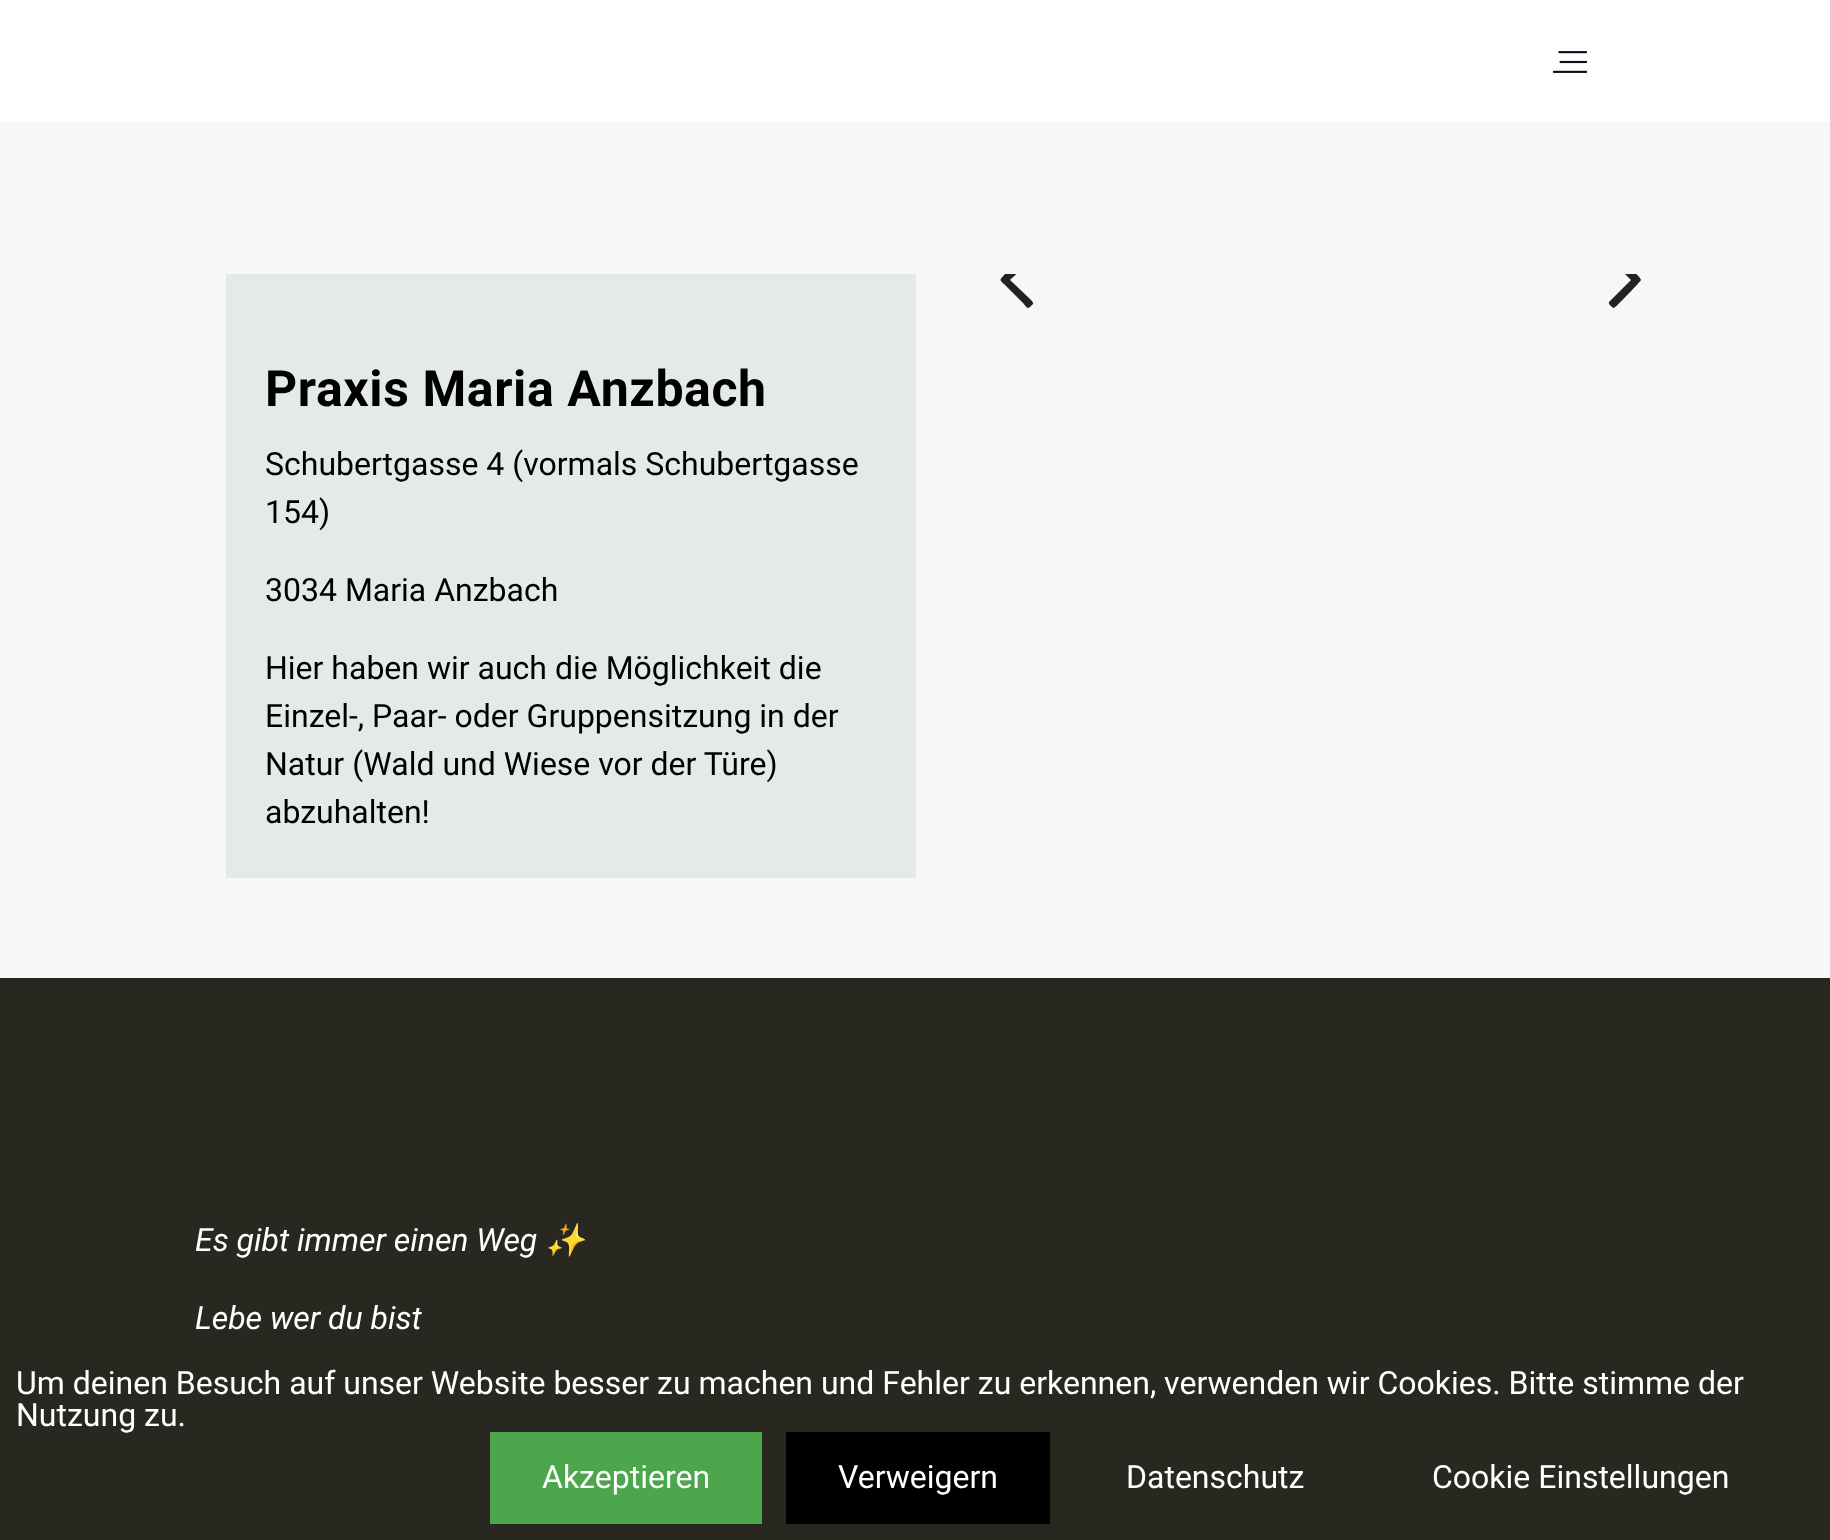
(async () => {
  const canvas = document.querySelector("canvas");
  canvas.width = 1830;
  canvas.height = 1540;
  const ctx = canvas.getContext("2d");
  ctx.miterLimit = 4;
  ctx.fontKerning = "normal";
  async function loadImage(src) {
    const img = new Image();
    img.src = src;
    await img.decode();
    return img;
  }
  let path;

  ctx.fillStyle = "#f7f7f7";
  ctx.fillRect(0, 0, 1830, 1540);
  ctx.fillStyle = "#ffffff";
  ctx.fillRect(0, 0, 1830, 122);
  ctx.drawImage(await loadImage("img/1.png"), 1553, 51, 34, 22);
  ctx.save();
  ctx.beginPath();
  ctx.rect(976, 274, 690, 62);
  ctx.clip();
  ctx.fillStyle = "#222222";
  path = new Path2D("M1033 257C1033 255 1030 252 1029 252C1027 252 1008 271 1005 274C999 281 999 279 1005 285L1023 303C1027 307 1027 310 1031 306L1033 304C1034 302 1029 298 1029 298L1010 280C1013 277 1033 259 1033 257Z");
  ctx.fill(path);
  path = new Path2D("M1641 280C1641 278 1633 271 1632 270L1619 257C1615 253 1615 250 1611 254L1609 256C1608 258 1613 261 1613 262L1631 280L1609 302C1608 304 1611 306 1612 307L1614 308C1616 307 1641 281 1641 280Z");
  ctx.fill(path);
  ctx.restore();
  for (const [x, y, w, h, color] of [
    [226, 274, 690, 604, "#e4eaea"],
    [0, 978, 1830, 562, "#282821"],
    [490, 1432, 272, 92, "#4ca64c"],
    [786, 1432, 264, 92, "#000000"],
  ]) {
    ctx.fillStyle = color;
    ctx.fillRect(x, y, w, h);
  }
  ctx.letterSpacing = "0.6px";
  ctx.font = "bold 50px Roboto";
  ctx.fillText("Praxis Maria Anzbach", 265, 406);
  ctx.letterSpacing = "0px";
  ctx.font = "32px Roboto";
  for (const [text, x, y] of [
    ["Schubertgasse 4 (vormals Schubertgasse", 265, 475],
    ["154)", 265, 523],
    ["3034 Maria Anzbach", 265, 601],
    ["Hier haben wir auch die Möglichkeit die", 265, 679],
    ["Einzel-, Paar- oder Gruppensitzung in der", 265, 727],
    ["Natur (Wald und Wiese vor der Türe)", 265, 775],
    ["abzuhalten!", 265, 823],
  ]) {
    ctx.fillText(text, x, y);
  }
  ctx.font = "italic 32px Roboto";
  ctx.fillStyle = "#ffffff";
  ctx.fillText("Es gibt immer einen Weg", 195, 1251);
  ctx.font = "italic 32px Noto Color Emoji";
  ctx.fillText("✨️", 545, 1251);
  ctx.font = "italic 32px Roboto";
  ctx.fillText("Lebe wer du bist", 195, 1329);
  ctx.font = "32px Roboto";
  for (const [text, x, y] of [
    ["Um deinen Besuch auf unser Website besser zu machen und Fehler zu erkennen, verwenden wir Cookies. Bitte stimme der", 16, 1394],
    ["Nutzung zu.", 16, 1426],
    ["Akzeptieren", 542, 1488],
    ["Verweigern", 838, 1488],
    ["Datenschutz", 1126, 1488],
    ["Cookie Einstellungen", 1432, 1488],
  ]) {
    ctx.fillText(text, x, y);
  }
})();
